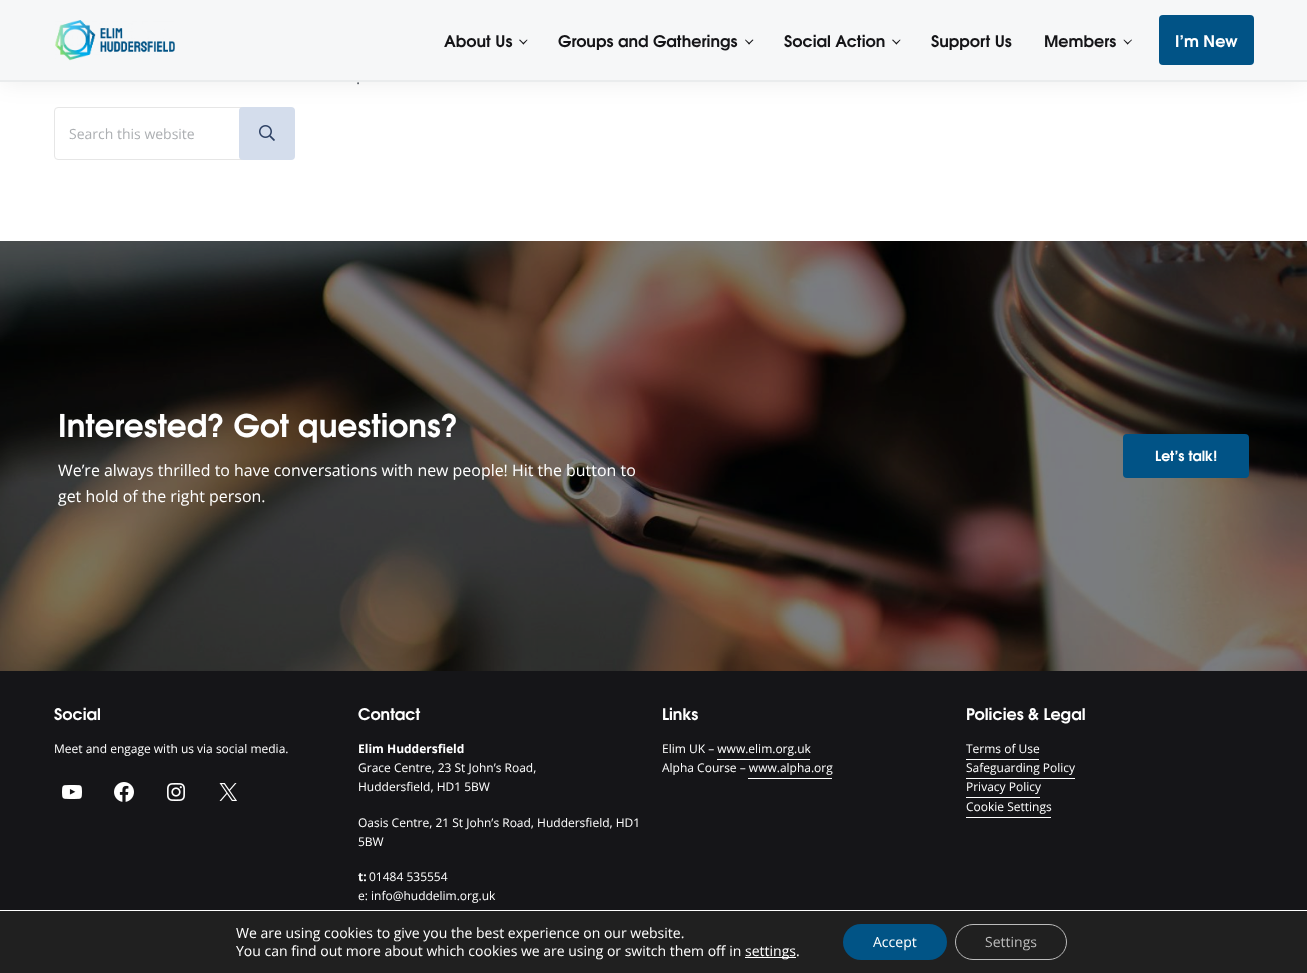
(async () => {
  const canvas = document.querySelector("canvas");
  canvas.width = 1307;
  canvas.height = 973;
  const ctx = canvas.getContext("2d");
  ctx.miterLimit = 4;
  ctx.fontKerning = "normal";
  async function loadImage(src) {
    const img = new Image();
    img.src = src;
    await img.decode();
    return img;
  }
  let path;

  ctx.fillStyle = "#ffffff";
  ctx.fillRect(0, 0, 1307, 973);
  ctx.beginPath();
  ctx.roundRect(54.5, 107.5, 208, 52, 3.5);
  ctx.strokeStyle = "#e6e6e6";
  ctx.stroke();
  ctx.fillStyle = "#d4ddec";
  ctx.beginPath();
  ctx.roundRect(239, 107, 56, 53, 4);
  ctx.fill();
  ctx.fillStyle = "rgba(0, 0, 0, 0.07)";
  ctx.filter = "blur(12px)";
  ctx.beginPath();
  ctx.rect(0, 0, 1307, 82);
  ctx.fill();
  ctx.filter = "none";
  ctx.fillStyle = "#f6f7f8";
  ctx.fillRect(0, 0, 1307, 80);
  ctx.fillStyle = "#eaeced";
  ctx.fillRect(0, 80, 1307, 2);
  ctx.drawImage(await loadImage("img/1.png"), 55, 20, 120, 41);
  ctx.fillStyle = "#151518";
  path = new Path2D("M527 39.5L527.5 40L523.5 44.5L522.5 43.5Z");
  ctx.fill(path);
  path = new Path2D("M520 39.5L524 43.5L523.5 44.5L519 40Z");
  ctx.fill(path);
  path = new Path2D("M752.5 39.5L753.5 40L749 44.5L748.5 43.5Z");
  ctx.fill(path);
  path = new Path2D("M745.5 39.5L750 43.5L749 44.5L745 40Z");
  ctx.fill(path);
  path = new Path2D("M900 39.5L900.5 40L896.5 44.5L895.5 43.5Z");
  ctx.fill(path);
  path = new Path2D("M893 39.5L897 43.5L896.5 44.5L892 40Z");
  ctx.fill(path);
  path = new Path2D("M1131.5 39.5L1132 40L1127.5 44.5L1127 43.5Z");
  ctx.fill(path);
  path = new Path2D("M1124 39.5L1128.5 43.5L1127.5 44.5L1123.5 40Z");
  ctx.fill(path);
  ctx.fillStyle = "#015386";
  ctx.beginPath();
  ctx.roundRect(1159, 15, 95, 50, 4);
  ctx.fill();
  ctx.drawImage(await loadImage("img/2.png"), 259, 125, 16, 16);
  ctx.drawImage(await loadImage("img/3.png"), 0, 241, 1307, 430);
  ctx.beginPath();
  ctx.roundRect(1123, 434, 126, 44, 4);
  ctx.fill();
  ctx.fillStyle = "#151518";
  ctx.fillRect(0, 671, 1307, 239);
  ctx.drawImage(await loadImage("img/4.png"), 62, 785, 20, 14);
  ctx.drawImage(await loadImage("img/5.png"), 114, 782, 20, 20);
  ctx.drawImage(await loadImage("img/6.png"), 167, 783, 18, 18);
  ctx.drawImage(await loadImage("img/7.png"), 219, 783, 18, 18);
  for (const [x, y, w, h, color] of [
    [717, 759, 93, 1, "#ffffff"],
    [748, 778, 84, 1, "#ffffff"],
    [966, 759, 73, 1, "#ffffff"],
    [966, 778, 109, 1, "#ffffff"],
    [966, 797, 74, 1, "#ffffff"],
    [966, 817, 85, 1, "#ffffff"],
    [0, 911, 1307, 62, "#202020"],
    [745, 957, 51, 1, "#ffffff"],
  ]) {
    ctx.fillStyle = color;
    ctx.fillRect(x, y, w, h);
  }
  ctx.fillStyle = "#015486";
  ctx.beginPath();
  ctx.roundRect(843, 924, 104, 36, 18);
  ctx.fill();
  ctx.beginPath();
  ctx.roundRect(955.5, 924.5, 111, 35, 17.5);
  ctx.strokeStyle = "#bcbcbc";
  ctx.stroke();
  ctx.font = "bold 15.95px TeX Gyre Adventor";
  ctx.fillStyle = "#151518";
  for (const [text, x, y] of [
    ["About Us", 444, 47],
    ["Groups and Gatherings", 558, 47],
    ["Social Action", 784, 47],
    ["Support Us", 931, 47],
    ["Members", 1044, 47],
  ]) {
    ctx.fillText(text, x, y);
  }
  ctx.fillStyle = "#ffffff";
  ctx.fillText("I’m New", 1175, 47);
  ctx.font = "15.95px Open Sans";
  ctx.fillStyle = "#585e65";
  ctx.fillText(".", 356, 84);
  ctx.font = "14px Open Sans";
  ctx.fillStyle = "#acafb2";
  ctx.fillText("Search this website", 69, 139);
  ctx.font = "bold 31.2px TeX Gyre Adventor";
  ctx.fillStyle = "#ffffff";
  ctx.fillText("Interested? Got questions?", 58, 437);
  ctx.font = "15.95px Open Sans";
  ctx.fillText("We’re always thrilled to have conversations with new people! Hit the button to", 58, 476);
  ctx.fillText("get hold of the right person.", 58, 502);
  ctx.font = "bold 14px TeX Gyre Adventor";
  ctx.fillText("Let’s talk!", 1155, 461);
  ctx.font = "bold 15.95px TeX Gyre Adventor";
  ctx.fillText("Social", 54, 720);
  ctx.font = "12px Open Sans";
  ctx.fillText("Meet and engage with us via social media.", 54, 753);
  ctx.font = "bold 15.95px TeX Gyre Adventor";
  ctx.fillText("Contact", 358, 720);
  ctx.font = "bold 12px Open Sans";
  ctx.fillText("Elim Huddersfield", 358, 753);
  ctx.font = "12px Open Sans";
  for (const [text, x, y] of [
    ["Grace Centre, 23 St John’s Road,", 358, 772],
    ["Huddersfield, HD1 5BW", 358, 791],
    ["Oasis Centre, 21 St John’s Road, Huddersfield, HD1", 358, 827],
    ["5BW", 358, 846],
  ]) {
    ctx.fillText(text, x, y);
  }
  ctx.font = "bold 12px Open Sans";
  ctx.fillText("t:", 358, 881);
  ctx.font = "12px Open Sans";
  ctx.fillText("01484 535554", 369, 881);
  ctx.fillText("e: info@huddelim.org.uk", 358, 900);
  ctx.font = "bold 15.95px TeX Gyre Adventor";
  ctx.fillText("Links", 662, 720);
  ctx.font = "12px Open Sans";
  ctx.fillText("Elim UK – www.elim.org.uk", 662, 753);
  ctx.fillText("Alpha Course – www.alpha.org", 662, 772);
  ctx.font = "bold 15.95px TeX Gyre Adventor";
  ctx.fillText("Policies & Legal", 966, 720);
  ctx.font = "12px Open Sans";
  for (const [text, x, y] of [
    ["Terms of Use", 966, 753],
    ["Safeguarding Policy", 966, 772],
    ["Privacy Policy", 966, 791],
    ["Cookie Settings", 966, 811],
  ]) {
    ctx.fillText(text, x, y);
  }
  ctx.font = "14px Open Sans";
  for (const [text, x, y] of [
    ["We are using cookies to give you the best experience on our website.", 236, 938],
    ["You can find out more about which cookies we are using or switch them off in", 236, 956],
    ["settings", 745, 956],
    [".", 796, 956],
    ["Accept", 873, 947],
  ]) {
    ctx.fillText(text, x, y);
  }
  ctx.fillStyle = "#bcbcbc";
  ctx.fillText("Settings", 985, 947);
})();
